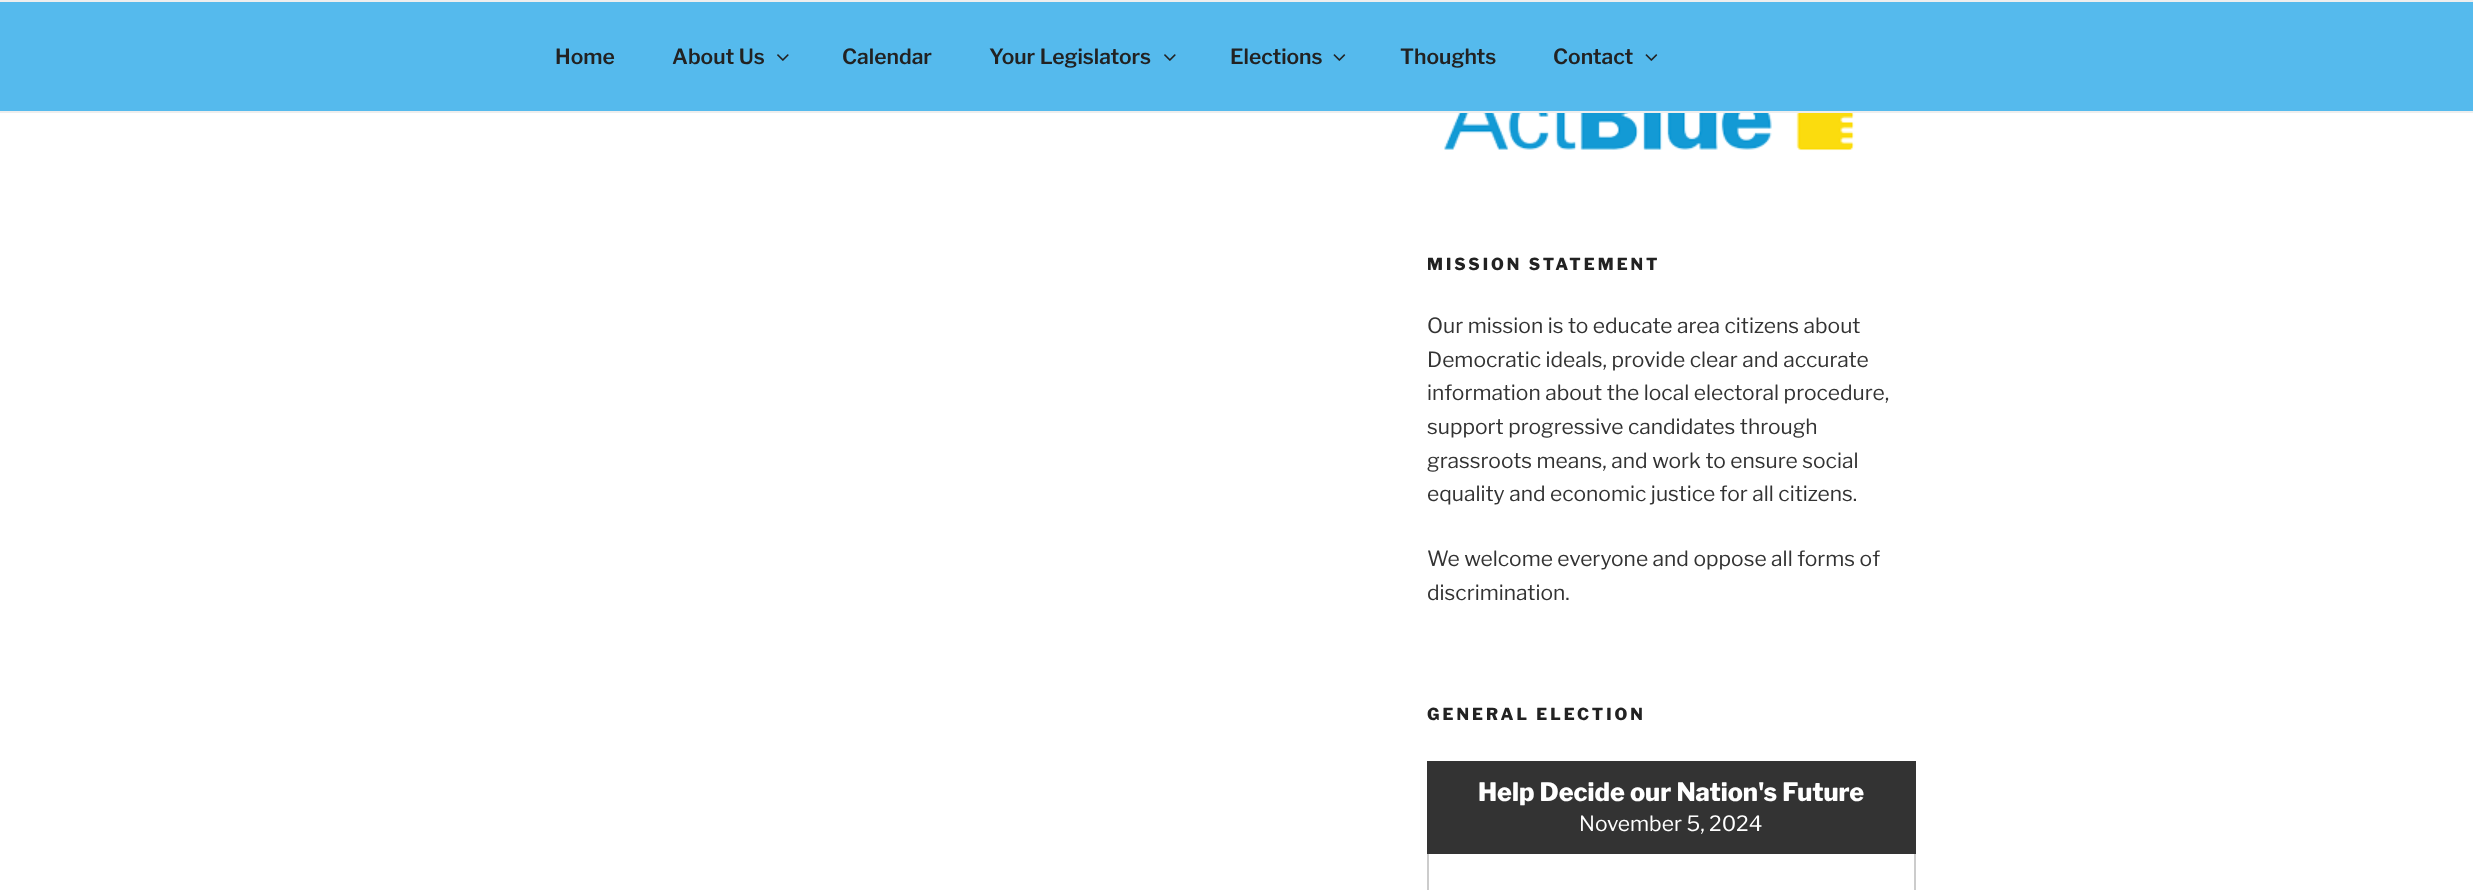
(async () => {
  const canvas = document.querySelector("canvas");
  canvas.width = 2473;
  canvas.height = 890;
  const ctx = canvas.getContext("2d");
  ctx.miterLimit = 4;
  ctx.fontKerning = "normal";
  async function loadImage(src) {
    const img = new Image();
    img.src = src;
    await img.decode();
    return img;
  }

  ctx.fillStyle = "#ffffff";
  ctx.fillRect(0, 0, 2473, 890);
  for (const [x, y, w, h, color] of [
    [0, 2, 2473, 109, "#55baed"],
    [0, 0, 2473, 2, "#eeeeee"],
    [0, 111, 2473, 2, "#eeeeee"],
  ]) {
    ctx.fillStyle = color;
    ctx.fillRect(x, y, w, h);
  }
  ctx.drawImage(await loadImage("img/1.png"), 777, 54, 12, 7);
  ctx.drawImage(await loadImage("img/1.png"), 1164, 54, 12, 7);
  ctx.drawImage(await loadImage("img/2.png"), 1333, 54, 13, 7);
  ctx.drawImage(await loadImage("img/2.png"), 1645, 54, 13, 7);
  ctx.drawImage(await loadImage("img/3.png"), 1444, 113, 411, 38);
  for (const [x, y, w, h, color] of [
    [1427, 761, 489, 93, "#333333"],
    [1914, 854, 2, 36, "#cccccc"],
    [1427, 854, 2, 36, "#cccccc"],
  ]) {
    ctx.fillStyle = color;
    ctx.fillRect(x, y, w, h);
  }
  ctx.font = "600 21px Libre Franklin";
  ctx.fillStyle = "#222222";
  for (const [text, x, y] of [
    ["Home", 555, 64],
    ["About Us", 672, 64],
    ["Calendar", 842, 64],
    ["Your Legislators", 989, 64],
    ["Elections", 1230, 64],
    ["Thoughts", 1400, 64],
    ["Contact", 1553, 64],
  ]) {
    ctx.fillText(text, x, y);
  }
  ctx.letterSpacing = "3px";
  ctx.font = "800 16.5px Libre Franklin";
  ctx.fillText("MISSION STATEMENT", 1427, 270);
  ctx.letterSpacing = "0px";
  ctx.font = "21px Libre Franklin";
  ctx.fillStyle = "#333333";
  for (const [text, x, y] of [
    ["Our mission is to educate area citizens about", 1427, 333],
    ["Democratic ideals, provide clear and accurate", 1427, 367],
    ["information about the local electoral procedure,", 1427, 400],
    ["support progressive candidates through", 1427, 434],
    ["grassroots means, and work to ensure social", 1427, 468],
    ["equality and economic justice for all citizens.", 1427, 501],
    ["We welcome everyone and oppose all forms of", 1427, 566],
    ["discrimination.", 1427, 600],
  ]) {
    ctx.fillText(text, x, y);
  }
  ctx.letterSpacing = "3px";
  ctx.font = "800 16.5px Libre Franklin";
  ctx.fillStyle = "#222222";
  ctx.fillText("GENERAL ELECTION", 1427, 720);
  ctx.letterSpacing = "0px";
  ctx.font = "800 25.25px Libre Franklin";
  ctx.fillStyle = "#ffffff";
  ctx.fillText("Help Decide our Nation's Future", 1478, 801);
  ctx.font = "21px Libre Franklin";
  ctx.fillText("November 5, 2024", 1579, 831);
})();
